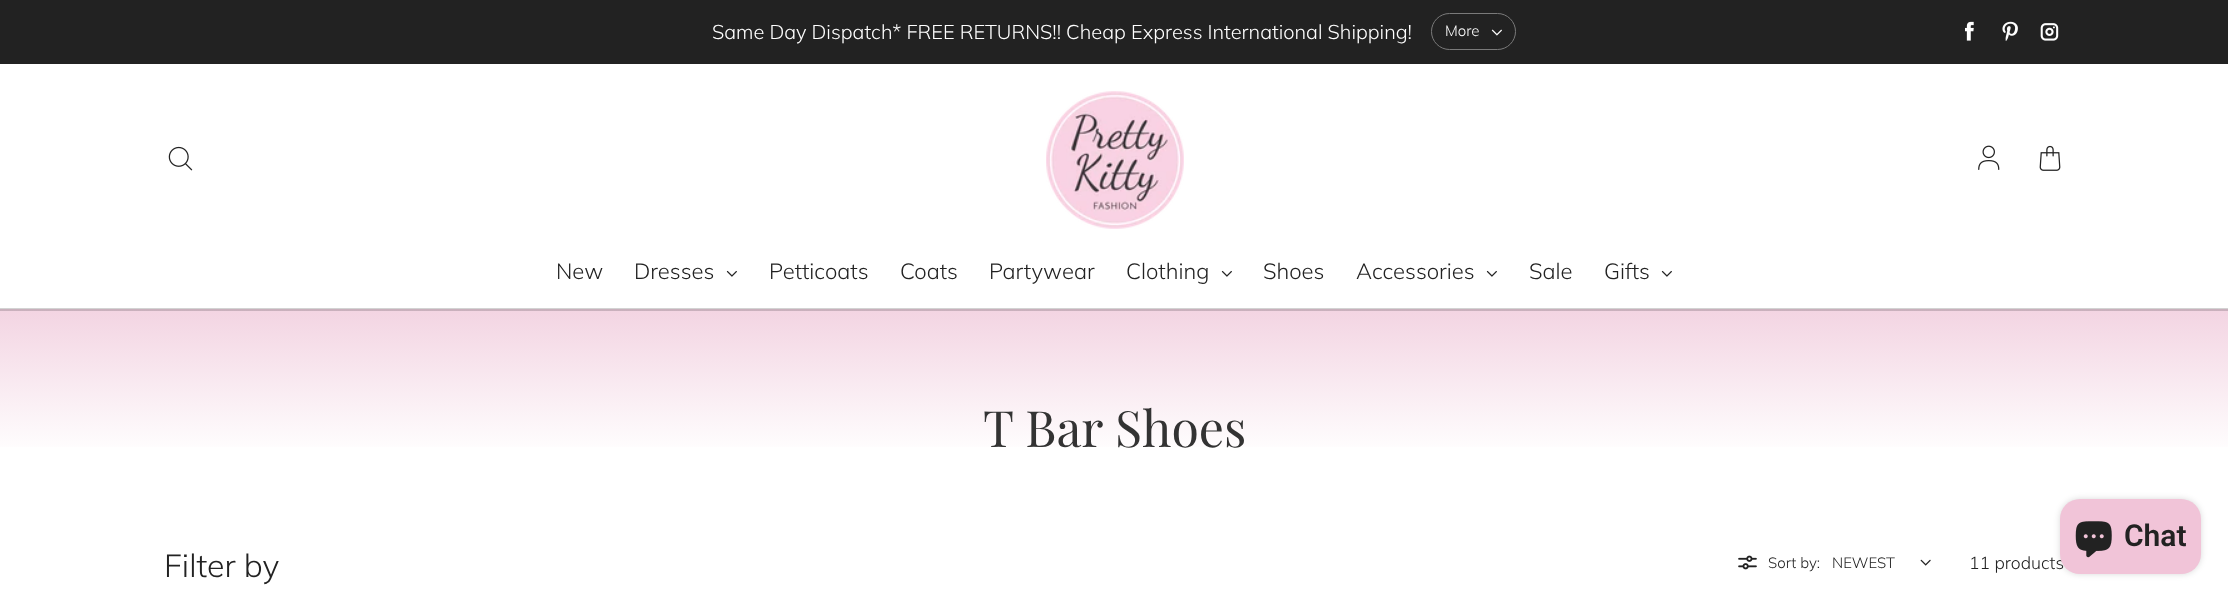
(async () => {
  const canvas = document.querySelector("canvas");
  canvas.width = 2228;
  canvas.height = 599;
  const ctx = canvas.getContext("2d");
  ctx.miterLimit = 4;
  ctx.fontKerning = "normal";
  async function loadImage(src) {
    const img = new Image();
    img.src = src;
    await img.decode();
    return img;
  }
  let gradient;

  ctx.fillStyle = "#ffffff";
  ctx.fillRect(0, 0, 2228, 599);
  ctx.fillStyle = "#d3d3d3";
  ctx.fillRect(0, 308, 2228, 1);
  ctx.fillStyle = "#222222";
  ctx.fillRect(0, 0, 2228, 64);
  ctx.beginPath();
  ctx.roundRect(1431.5, 13.5, 84, 36, 18);
  ctx.strokeStyle = "#7a7a7a";
  ctx.stroke();
  ctx.drawImage(await loadImage("img/1.png"), 1491, 29, 11, 7);
  ctx.drawImage(await loadImage("img/2.png"), 1965, 21, 9, 20);
  ctx.drawImage(await loadImage("img/3.png"), 2002, 21, 16, 20);
  ctx.drawImage(await loadImage("img/4.png"), 2040, 23, 19, 18);
  ctx.drawImage(await loadImage("img/5.png"), 168, 146, 25, 25);
  ctx.drawImage(await loadImage("img/6.png"), 1046, 91, 138, 138);
  ctx.drawImage(await loadImage("img/7.png"), 1978, 145, 22, 25);
  ctx.drawImage(await loadImage("img/8.png"), 2039, 145, 22, 26);
  ctx.drawImage(await loadImage("img/9.png"), 726, 270, 11, 7);
  ctx.drawImage(await loadImage("img/9.png"), 1221, 270, 11, 7);
  ctx.drawImage(await loadImage("img/9.png"), 1486, 270, 11, 7);
  ctx.drawImage(await loadImage("img/9.png"), 1661, 270, 11, 7);
  gradient = ctx.createLinearGradient(1114, 456, 1114, 309);
  gradient.addColorStop(0, "#ffffff");
  gradient.addColorStop(1, "#f3d4e2");
  ctx.fillStyle = gradient;
  ctx.fillRect(0, 311, 2228, 136);
  gradient = ctx.createLinearGradient(1114, 456, 1114, 309);
  gradient.addColorStop(0, "#d3d3d3");
  gradient.addColorStop(1, "#c9b0bc");
  ctx.fillStyle = gradient;
  ctx.fillRect(0, 309, 2228, 2);
  ctx.drawImage(await loadImage("img/10.png"), 1738, 555, 19, 15);
  ctx.drawImage(await loadImage("img/11.png"), 1920, 559, 11, 7);
  ctx.fillStyle = "rgba(0, 0, 0, 0.15)";
  ctx.filter = "blur(3px)";
  ctx.beginPath();
  ctx.roundRect(2060, 499, 141, 75, 20);
  ctx.fill();
  ctx.filter = "none";
  ctx.font = "300 20px Muli";
  ctx.fillStyle = "#ffffff";
  ctx.fillText("Same Day Dispatch* FREE RETURNS!! Cheap Express International Shipping!", 712, 39);
  ctx.font = "300 15px Muli";
  ctx.fillText("More", 1445, 36);
  ctx.font = "300 22px Muli";
  ctx.fillStyle = "#222222";
  for (const [text, x, y] of [
    ["New", 556, 279],
    ["Dresses", 634, 279],
    ["Petticoats", 769, 279],
    ["Coats", 900, 279],
    ["Partywear", 989, 279],
    ["Clothing", 1126, 279],
    ["Shoes", 1263, 279],
    ["Accessories", 1356, 279],
    ["Sale", 1529, 279],
    ["Gifts", 1604, 279],
  ]) {
    ctx.fillText(text, x, y);
  }
  ctx.font = "50px Playfair Display";
  ctx.fillStyle = "#333333";
  ctx.fillText("T Bar Shoes", 983, 447);
  ctx.font = "300 32px Muli";
  ctx.fillStyle = "#222222";
  ctx.fillText("Filter by", 164, 577);
  ctx.font = "300 15px Muli";
  ctx.fillText("Sort by:", 1768, 568);
  ctx.fillText("NEWEST", 1832, 568);
  ctx.font = "300 17.5px Muli";
  ctx.fillText("11 products", 1969, 569);
  ctx.fillStyle = "#f1c4d8";
  ctx.beginPath();
  ctx.roundRect(2060, 499, 141, 75, 20);
  ctx.fill();
  ctx.drawImage(await loadImage("img/12.png"), 2075, 521, 37, 37);
  ctx.font = "600 30px Roboto";
  ctx.fillStyle = "#222222";
  ctx.fillText("Chat", 2124, 546);
})();
